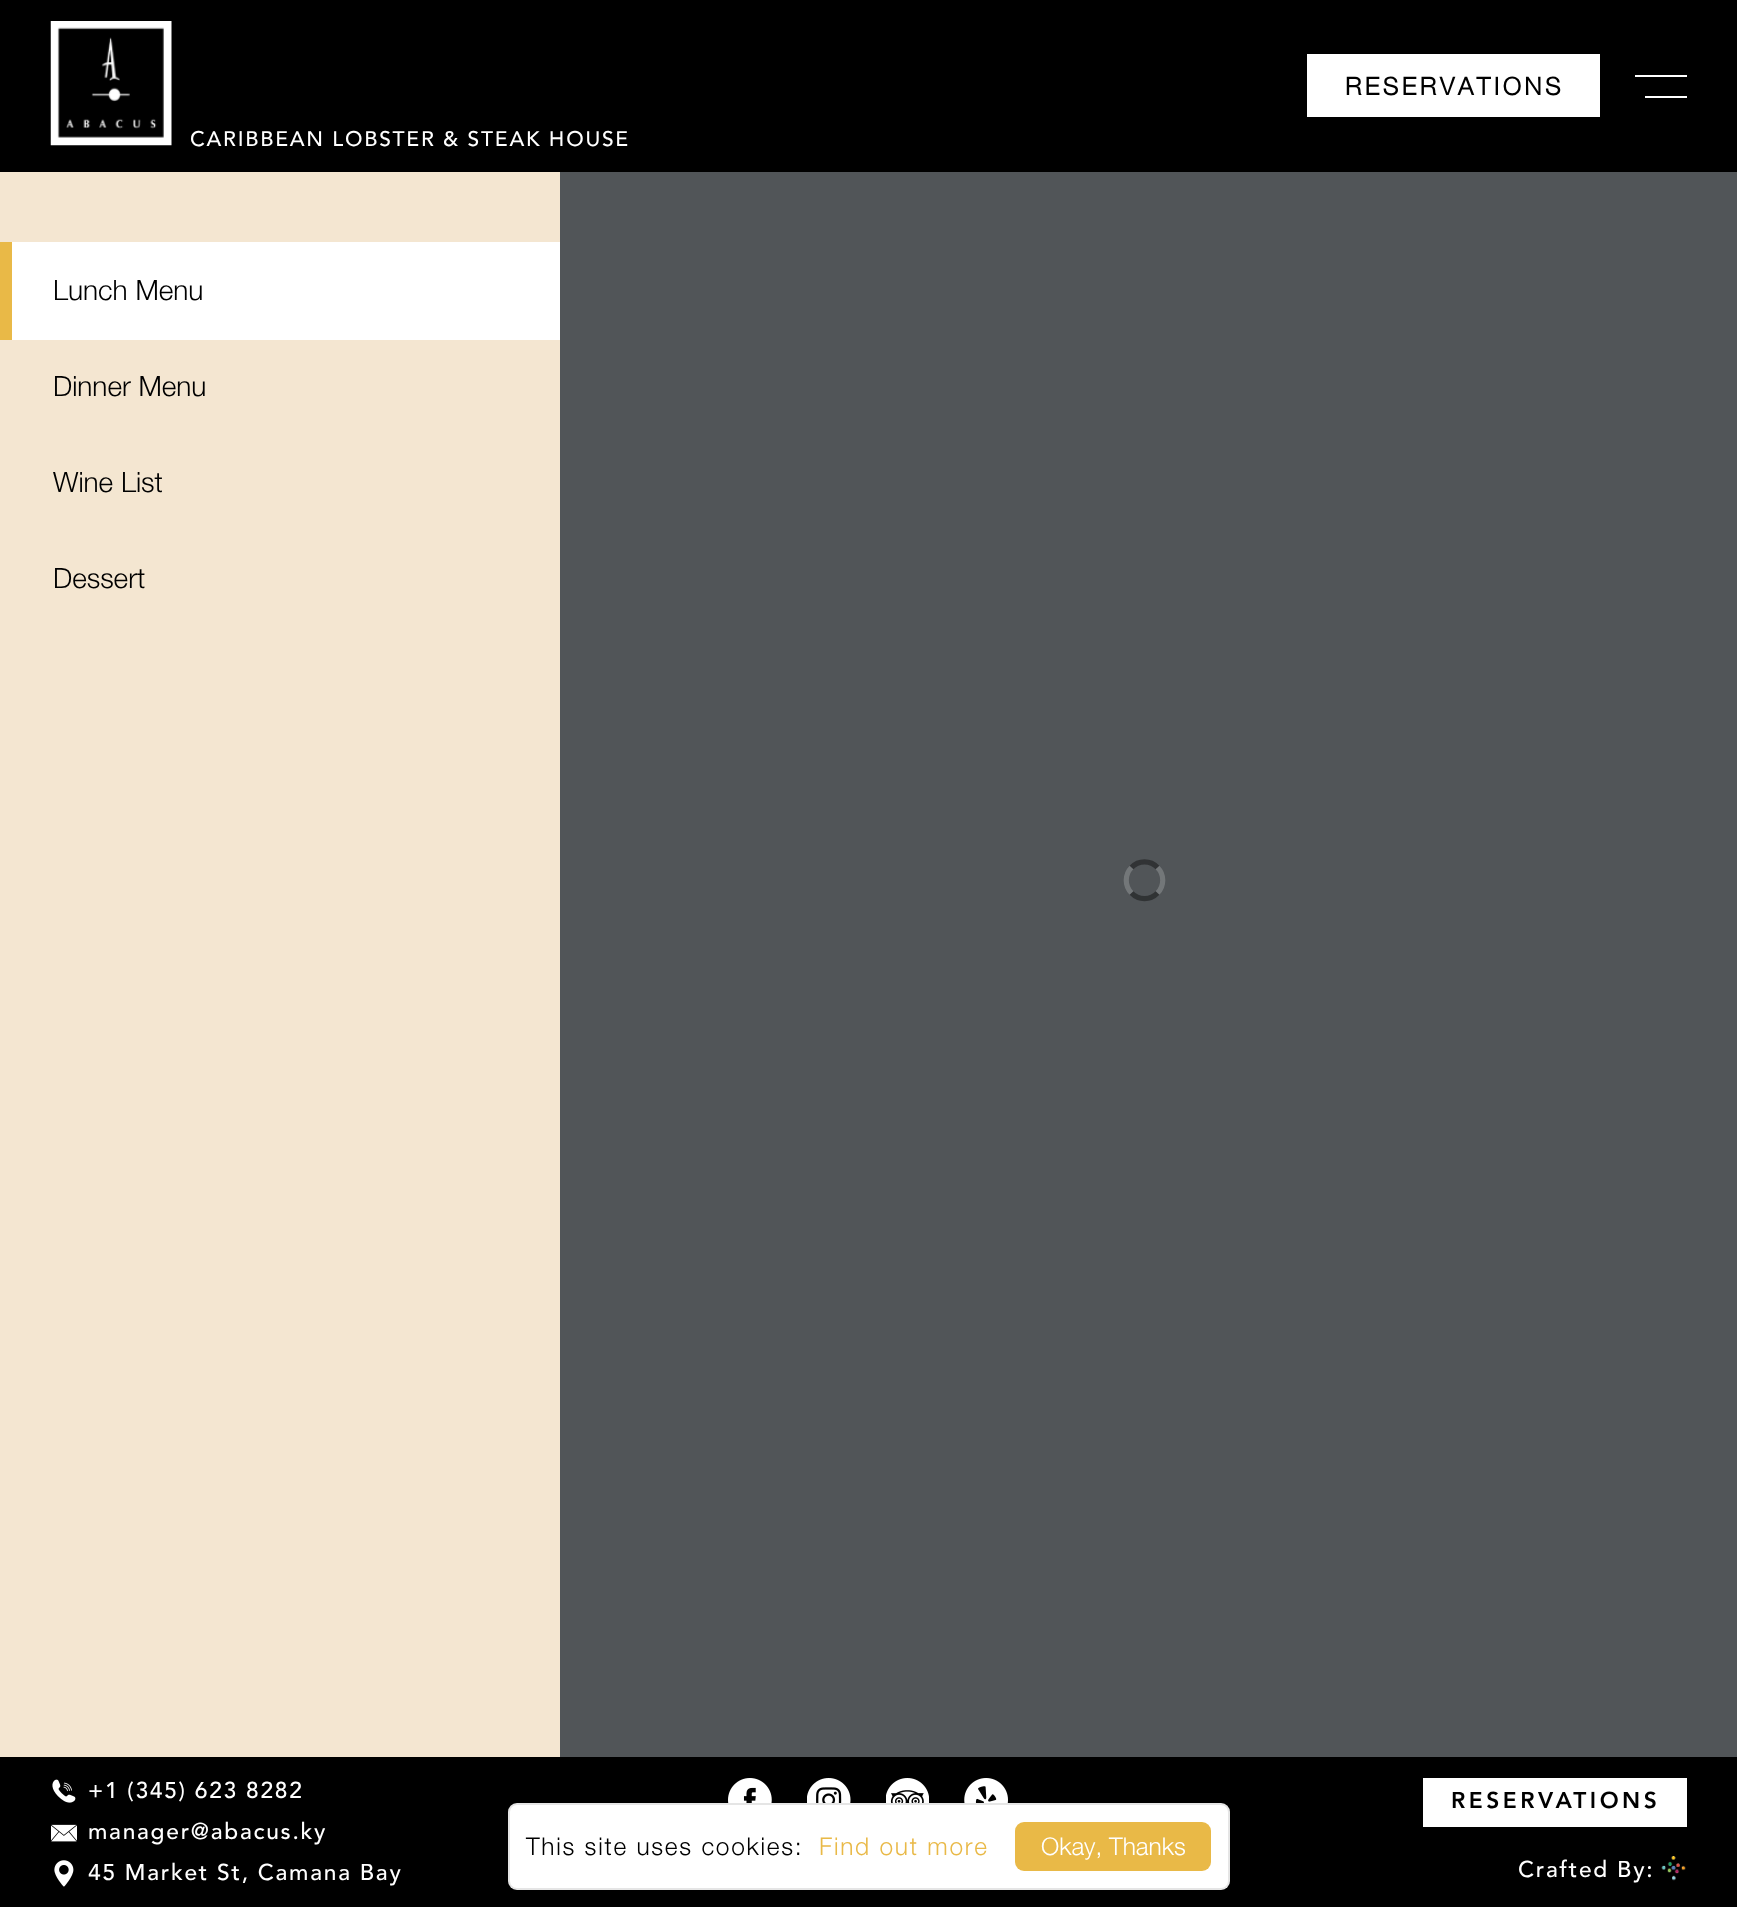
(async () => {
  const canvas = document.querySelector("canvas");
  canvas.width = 1737;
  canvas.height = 1907;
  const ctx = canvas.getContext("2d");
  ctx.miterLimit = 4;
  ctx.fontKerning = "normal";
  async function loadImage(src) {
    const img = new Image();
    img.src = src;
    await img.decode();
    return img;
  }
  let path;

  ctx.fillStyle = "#000000";
  ctx.fillRect(0, 0, 1737, 1907);
  for (const [x, y, w, h, color] of [
    [1307, 54, 293, 63, "#ffffff"],
    [1635, 75, 52, 2, "#ffffff"],
    [1645, 96, 42, 2, "#ffffff"],
  ]) {
    ctx.fillStyle = color;
    ctx.fillRect(x, y, w, h);
  }
  ctx.drawImage(await loadImage("img/1.png"), 50, 21, 122, 125);
  for (const [x, y, w, h, color] of [
    [0, 172, 560, 1585, "#f4e6d1"],
    [0, 242, 12, 98, "#e9b947"],
    [12, 242, 548, 98, "#ffffff"],
    [560, 172, 1177, 1585, "#515558"],
  ]) {
    ctx.fillStyle = color;
    ctx.fillRect(x, y, w, h);
  }
  path = new Path2D("M1131.5 867.5C1138.5 860 1150.5 860 1157.5 867.5");
  ctx.strokeStyle = "#313335";
  ctx.lineWidth = 5.2;
  ctx.stroke(path);
  path = new Path2D("M1157.5 867.5C1164.5 874.5 1164.5 886 1157.5 893");
  ctx.strokeStyle = "rgba(255, 255, 255, 0.2)";
  ctx.stroke(path);
  path = new Path2D("M1157.5 893C1150.5 900.5 1138.5 900.5 1131.5 893");
  ctx.strokeStyle = "rgba(0, 0, 0, 0.4)";
  ctx.stroke(path);
  path = new Path2D("M1131.5 893C1124.5 886 1124.5 874.5 1131.5 867.5");
  ctx.strokeStyle = "rgba(255, 255, 255, 0.2)";
  ctx.stroke(path);
  ctx.drawImage(await loadImage("img/2.png"), 52, 1779, 24, 24);
  ctx.drawImage(await loadImage("img/3.png"), 51, 1824, 26, 18);
  ctx.drawImage(await loadImage("img/4.png"), 54, 1860, 20, 27);
  ctx.drawImage(await loadImage("img/5.png"), 728, 1778, 44, 25);
  ctx.drawImage(await loadImage("img/6.png"), 807, 1778, 44, 25);
  ctx.drawImage(await loadImage("img/7.png"), 886, 1778, 43, 25);
  ctx.drawImage(await loadImage("img/8.png"), 964, 1778, 44, 25);
  ctx.fillStyle = "#ffffff";
  ctx.fillRect(1423, 1778, 264, 49);
  ctx.drawImage(await loadImage("img/9.png"), 1661, 1856, 25, 25);
  ctx.beginPath();
  ctx.roundRect(508, 1803, 722, 87, 9);
  ctx.fill();
  ctx.beginPath();
  ctx.roundRect(509, 1804, 720, 85, 8);
  ctx.strokeStyle = "rgba(0, 0, 0, 0.1)";
  ctx.lineWidth = 2;
  ctx.stroke();
  ctx.fillStyle = "#e9b947";
  ctx.beginPath();
  ctx.roundRect(1015, 1822, 196, 49, 9);
  ctx.fill();
  ctx.letterSpacing = "3.5px";
  ctx.font = "bold 24.5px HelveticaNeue";
  ctx.fillStyle = "#000000";
  ctx.fillText("RESERVATIONS", 1345, 95);
  ctx.letterSpacing = "1.75px";
  ctx.font = "500 21px Avenir";
  ctx.fillStyle = "#ffffff";
  ctx.fillText("CARIBBEAN LOBSTER & STEAK HOUSE", 190, 146);
  ctx.letterSpacing = "0px";
  ctx.font = "300 28px HelveticaNeue";
  ctx.fillStyle = "#000000";
  for (const [text, x, y] of [
    ["Lunch Menu", 53, 300],
    ["Dinner Menu", 53, 396],
    ["Wine List", 53, 492],
    ["Dessert", 53, 588],
  ]) {
    ctx.fillText(text, x, y);
  }
  ctx.letterSpacing = "1.75px";
  ctx.font = "500 22.75px Avenir";
  ctx.fillStyle = "#ffffff";
  for (const [text, x, y] of [
    ["+1 (345) 623 8282", 88, 1798],
    ["manager@abacus.ky", 88, 1839],
    ["45 Market St, Camana Bay", 88, 1880],
  ]) {
    ctx.fillText(text, x, y);
  }
  ctx.letterSpacing = "3.5px";
  ctx.font = "900 22.75px Avenir";
  ctx.fillStyle = "#000000";
  ctx.fillText("RESERVATIONS", 1451, 1808);
  ctx.letterSpacing = "1.75px";
  ctx.font = "500 22.75px Avenir";
  ctx.fillStyle = "#ffffff";
  ctx.fillText("Crafted By:", 1518, 1877);
  ctx.font = "300 24.5px HelveticaNeue";
  ctx.fillStyle = "#000000";
  ctx.fillText("This site uses cookies:", 526, 1855);
  ctx.fillStyle = "#e9b947";
  ctx.fillText("Find out more", 819, 1855);
  ctx.letterSpacing = "0px";
  ctx.fillStyle = "#ffffff";
  ctx.fillText("Okay, Thanks", 1041, 1855);
})();
